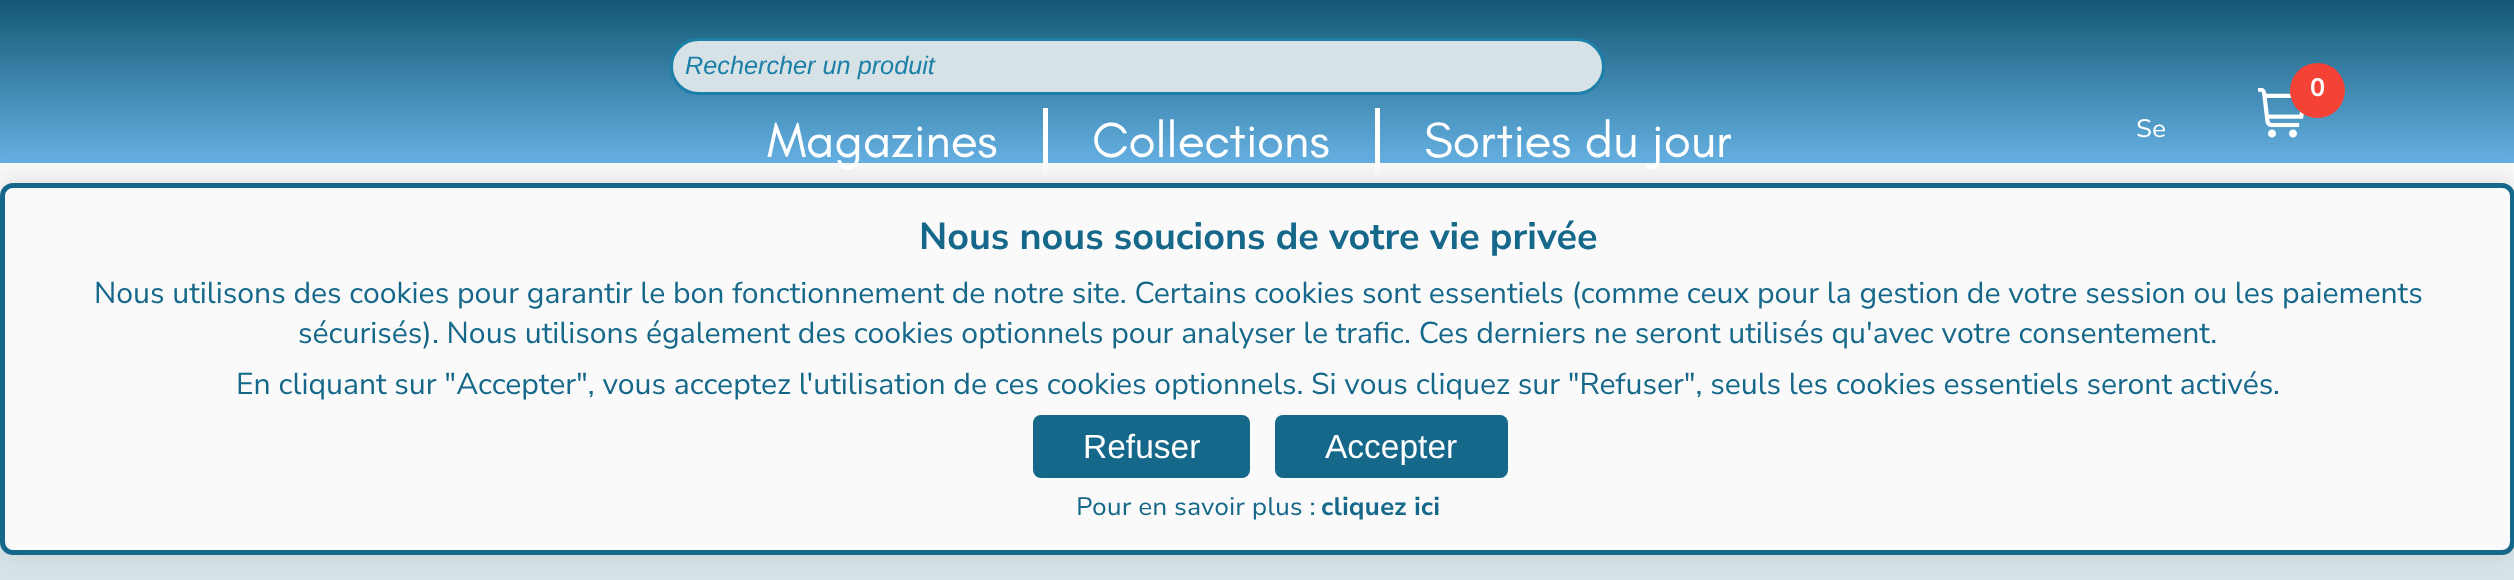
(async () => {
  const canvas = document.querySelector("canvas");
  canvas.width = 2514;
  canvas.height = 580;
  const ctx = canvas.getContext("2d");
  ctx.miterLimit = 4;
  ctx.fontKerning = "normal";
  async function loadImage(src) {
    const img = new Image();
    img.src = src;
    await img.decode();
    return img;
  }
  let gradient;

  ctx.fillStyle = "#fafafa";
  ctx.fillRect(0, 0, 2514, 580);
  gradient = ctx.createLinearGradient(1258, 0, 1258, 163);
  gradient.addColorStop(0, "#135975");
  gradient.addColorStop(1, "#65b0e2");
  ctx.fillStyle = gradient;
  ctx.fillRect(0, 0, 2514, 163);
  ctx.fillStyle = "#d6e2e6";
  ctx.beginPath();
  ctx.roundRect(671.5, 39.5, 932, 54, 27);
  ctx.fill();
  ctx.strokeStyle = "#1b7fa8";
  ctx.lineWidth = 3;
  ctx.stroke();
  ctx.fillStyle = "#ffffff";
  ctx.fillRect(1043, 108, 5, 67);
  ctx.fillRect(1375, 108, 5, 67);
  ctx.drawImage(await loadImage("img/1.png"), 2258, 88, 46, 50);
  ctx.fillStyle = "#f44336";
  ctx.beginPath();
  ctx.arc(2317.5, 90.5, 27.5, 0, Math.PI * 2);
  ctx.fill();
  ctx.fillStyle = "#d6e2e6";
  ctx.fillRect(0, 542, 2514, 38);
  ctx.fillStyle = "rgba(0, 0, 0, 0.1)";
  ctx.filter = "blur(12.5px)";
  ctx.beginPath();
  ctx.roundRect(0, 178, 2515, 372, 13);
  ctx.fill();
  ctx.filter = "none";
  ctx.fillStyle = "#fafafa";
  ctx.beginPath();
  ctx.roundRect(2.5, 185.5, 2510, 367, 10.5);
  ctx.fill();
  ctx.strokeStyle = "#16688a";
  ctx.lineWidth = 5;
  ctx.stroke();
  ctx.fillStyle = "#16688a";
  ctx.beginPath();
  ctx.roundRect(1033, 415, 217, 63, 8);
  ctx.fill();
  ctx.beginPath();
  ctx.roundRect(1275, 415, 233, 63, 8);
  ctx.fill();
  ctx.font = "italic 25.25px Liberation Sans";
  ctx.fillStyle = "#1b7fa8";
  ctx.fillText("Rechercher un produit", 685, 74);
  ctx.font = "50.25px Teachers";
  ctx.fillStyle = "#ffffff";
  for (const [text, x, y] of [
    ["Magazines", 767, 157],
    ["Collections", 1092, 157],
    ["Sorties du jour", 1424, 157],
  ]) {
    ctx.fillText(text, x, y);
  }
  ctx.font = "bold 25.25px Nunito Sans";
  ctx.fillText("0", 2310, 96);
  ctx.font = "25.25px Nunito Sans";
  ctx.fillText("Se", 2136, 137);
  ctx.font = "bold 37.75px Nunito Sans";
  ctx.fillStyle = "#16688a";
  ctx.fillText("Nous nous soucions de votre vie privée", 919, 249);
  ctx.font = "30.18px 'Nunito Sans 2'";
  for (const [text, x, y] of [
    ["Nous utilisons des cookies pour garantir le bon fonctionnement de notre site. Certains cookies sont essentiels (comme ceux pour la gestion de votre session ou les paiements", 94, 303],
    ["sécurisés). Nous utilisons également des cookies optionnels pour analyser le trafic. Ces derniers ne seront utilisés qu'avec votre consentement.", 298, 343],
    ["En cliquant sur \"Accepter\", vous acceptez l'utilisation de ces cookies optionnels. Si vous cliquez sur \"Refuser\", seuls les cookies essentiels seront activés.", 236, 394],
  ]) {
    ctx.fillText(text, x, y);
  }
  ctx.font = "33.5px Liberation Sans";
  ctx.fillStyle = "#ffffff";
  ctx.fillText("Refuser", 1083, 458);
  ctx.fillText("Accepter", 1325, 458);
  ctx.font = "25.25px Nunito Sans";
  ctx.fillStyle = "#16688a";
  ctx.fillText("Pour en savoir plus :", 1076, 515);
  ctx.font = "bold 25.25px 'Nunito Sans 2'";
  ctx.fillText("cliquez ici", 1321, 515);
})();
